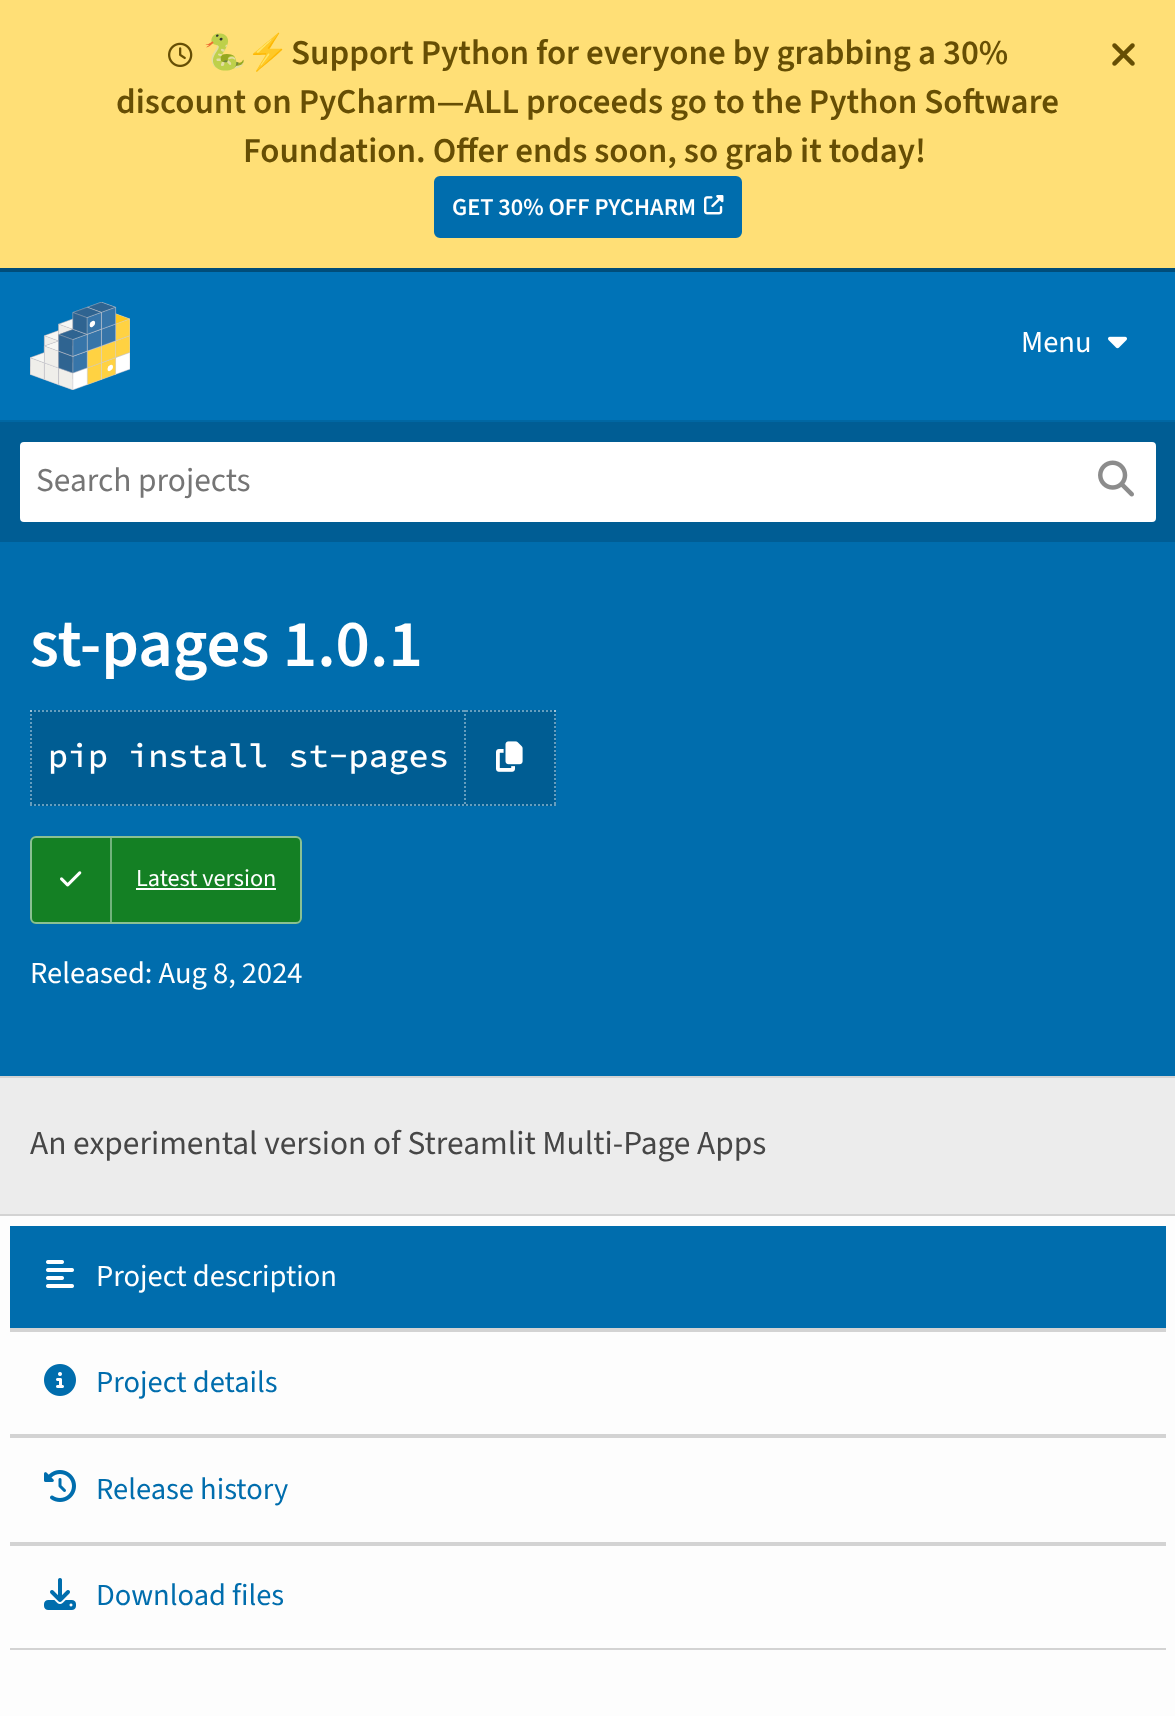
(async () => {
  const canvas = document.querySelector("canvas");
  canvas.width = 1175;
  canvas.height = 1716;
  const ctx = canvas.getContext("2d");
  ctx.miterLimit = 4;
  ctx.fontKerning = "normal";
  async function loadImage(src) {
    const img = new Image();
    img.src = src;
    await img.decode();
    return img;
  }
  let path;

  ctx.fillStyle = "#fdfdfd";
  ctx.fillRect(0, 0, 1175, 1716);
  ctx.fillStyle = "#ffdf76";
  ctx.fillRect(0, 0, 1175, 268);
  ctx.fillStyle = "#004d7a";
  ctx.fillRect(0, 268, 1175, 4);
  ctx.fillStyle = "#006dad";
  ctx.beginPath();
  ctx.roundRect(435, 177, 306, 60, 5);
  ctx.fill();
  ctx.strokeStyle = "#006dad";
  ctx.lineWidth = 2;
  ctx.stroke();
  ctx.drawImage(await loadImage("img/1.png"), 704, 195, 20, 20);
  ctx.drawImage(await loadImage("img/2.png"), 168, 42, 25, 25);
  ctx.drawImage(await loadImage("img/3.png"), 1112, 43, 23, 23);
  ctx.fillStyle = "#0073b7";
  ctx.fillRect(0, 272, 1175, 148);
  ctx.fillStyle = "#0067a3";
  ctx.fillRect(0, 420, 1175, 2);
  ctx.drawImage(await loadImage("img/4.png"), 30, 302, 100, 88);
  ctx.drawImage(await loadImage("img/5.png"), 1108, 336, 19, 13);
  ctx.fillStyle = "#005d94";
  ctx.fillRect(0, 422, 1175, 120);
  ctx.fillStyle = "#ffffff";
  ctx.beginPath();
  ctx.roundRect(21, 443, 1134, 78, 3);
  ctx.fill();
  ctx.strokeStyle = "#ffffff";
  ctx.stroke();
  ctx.drawImage(await loadImage("img/6.png"), 1098, 460, 36, 37);
  ctx.fillStyle = "#006dad";
  ctx.fillRect(0, 542, 1175, 534);
  ctx.fillStyle = "#005d93";
  ctx.fillRect(30, 710, 526, 96);
  path = new Path2D("M30 711H466");
  ctx.strokeStyle = "#669ebe";
  ctx.setLineDash([2, 2]);
  ctx.stroke(path);
  path = new Path2D("M465 710V806");
  ctx.stroke(path);
  path = new Path2D("M30 805H466");
  ctx.stroke(path);
  path = new Path2D("M31 710V806");
  ctx.strokeStyle = "rgba(255, 255, 255, 0.4)";
  ctx.stroke(path);
  path = new Path2D("M466 711H556");
  ctx.strokeStyle = "#669ebe";
  ctx.stroke(path);
  path = new Path2D("M555 710V806");
  ctx.strokeStyle = "rgba(255, 255, 255, 0.4)";
  ctx.stroke(path);
  path = new Path2D("M466 805H556");
  ctx.strokeStyle = "#669ebe";
  ctx.stroke(path);
  ctx.drawImage(await loadImage("img/7.png"), 496, 741, 27, 31);
  ctx.fillStyle = "#148024";
  ctx.beginPath();
  ctx.roundRect(30, 836, 272, 88, 6);
  ctx.fill();
  ctx.beginPath();
  ctx.roundRect(31, 837, 270, 86, 5);
  ctx.strokeStyle = "rgba(255, 255, 255, 0.5)";
  ctx.setLineDash([]);
  ctx.stroke();
  ctx.fillStyle = "#72b37c";
  ctx.fillRect(110, 838, 2, 84);
  ctx.drawImage(await loadImage("img/8.png"), 60, 871, 22, 16);
  for (const [x, y, w, h, color] of [
    [136, 888, 140, 2, "#ffffff"],
    [0, 1078, 1175, 136, "#ececec"],
    [0, 1076, 1175, 2, "#d3d3d3"],
    [0, 1214, 1175, 2, "#d3d3d3"],
    [10, 1226, 1156, 102, "#006dad"],
    [10, 1328, 1156, 4, "#d3d3d3"],
  ]) {
    ctx.fillStyle = color;
    ctx.fillRect(x, y, w, h);
  }
  ctx.drawImage(await loadImage("img/9.png"), 46, 1260, 28, 28);
  ctx.fillRect(10, 1434, 1156, 4);
  ctx.drawImage(await loadImage("img/10.png"), 44, 1364, 32, 32);
  ctx.fillRect(10, 1542, 1156, 4);
  ctx.drawImage(await loadImage("img/11.png"), 44, 1470, 32, 32);
  ctx.fillRect(10, 1648, 1156, 2);
  ctx.drawImage(await loadImage("img/12.png"), 44, 1578, 32, 32);
  ctx.font = "bold 34.95px Noto Color Emoji";
  ctx.fillStyle = "#664e04";
  ctx.fillText("🐍⚡️", 203, 64);
  ctx.font = "600 34.95px 'Source Sans 3'";
  for (const [text, x, y] of [
    ["Support Python for everyone by grabbing a 30%", 291, 64],
    ["discount on PyCharm—ALL proceeds go to the Python Software", 116, 113],
    ["Foundation. Offer ends soon, so grab it today!", 243, 162],
  ]) {
    ctx.fillText(text, x, y);
  }
  ctx.font = "600 24.25px 'Source Sans 3'";
  ctx.fillStyle = "#ffffff";
  ctx.fillText("GET 30% OFF PYCHARM", 452, 215);
  ctx.font = "30.5px 'Source Sans 3'";
  ctx.fillText("Menu", 1021, 352);
  ctx.font = "33.4px 'Source Sans 3'";
  ctx.fillStyle = "#757575";
  ctx.fillText("Search projects", 36, 491);
  ctx.font = "600 67px 'Source Sans 3'";
  ctx.fillStyle = "#ffffff";
  ctx.fillText("st-pages 1.0.1", 30, 666);
  ctx.font = "200 33.4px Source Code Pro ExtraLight";
  ctx.fillText("pip install st-pages", 48, 767);
  ctx.font = "24.25px 'Source Sans 3'";
  ctx.fillText("Latest version", 136, 886);
  ctx.font = "30.5px 'Source Sans 3'";
  ctx.fillText("Released: Aug 8, 2024", 30, 983);
  ctx.font = "33.4px 'Source Sans 3'";
  ctx.fillStyle = "#464646";
  ctx.fillText("An experimental version of Streamlit Multi-Page Apps", 30, 1154);
  ctx.font = "30.5px 'Source Sans 3'";
  ctx.fillStyle = "#ffffff";
  ctx.fillText("Project description", 96, 1286);
  ctx.fillStyle = "#006dad";
  for (const [text, x, y] of [
    ["Project details", 96, 1392],
    ["Release history", 96, 1499],
    ["Download files", 96, 1605],
  ]) {
    ctx.fillText(text, x, y);
  }
})();
